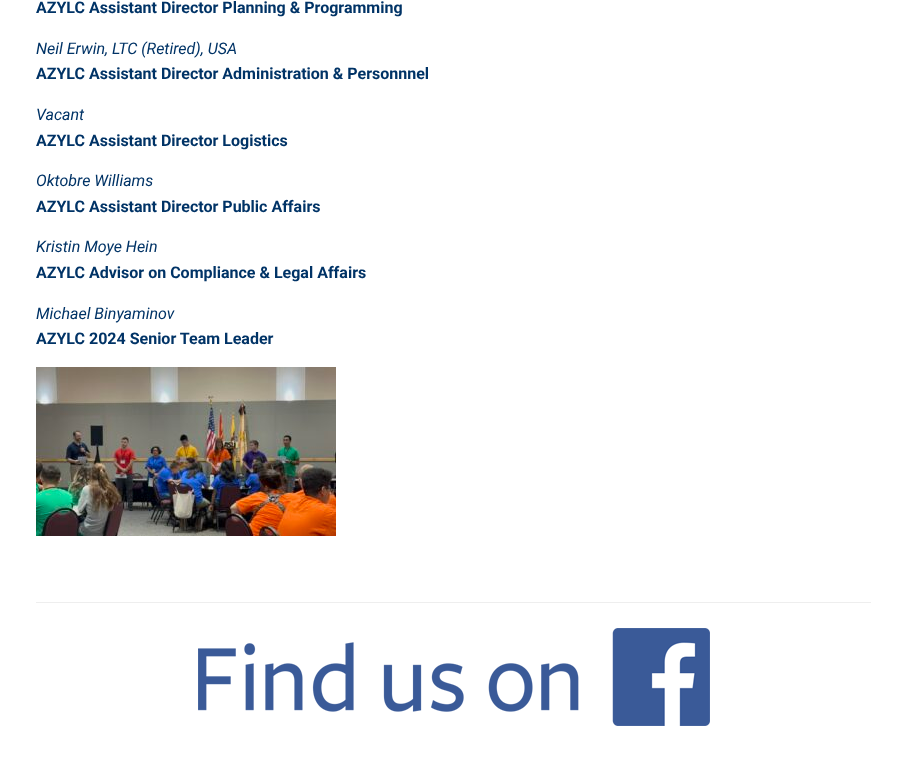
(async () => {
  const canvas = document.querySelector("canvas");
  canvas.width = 907;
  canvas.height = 779;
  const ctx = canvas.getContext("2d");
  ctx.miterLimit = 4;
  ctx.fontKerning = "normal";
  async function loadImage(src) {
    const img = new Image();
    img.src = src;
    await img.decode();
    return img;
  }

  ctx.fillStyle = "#ffffff";
  ctx.fillRect(0, 0, 907, 779);
  ctx.drawImage(await loadImage("img/1.png"), 36, 367, 300, 169);
  ctx.fillStyle = "#eeeeee";
  ctx.fillRect(36, 602, 835, 1);
  ctx.drawImage(await loadImage("img/2.png"), 198, 628, 512, 98);
  ctx.font = "bold 16px Roboto";
  ctx.fillStyle = "#003366";
  ctx.fillText("AZYLC Assistant Director Planning & Programming", 36, 13);
  ctx.font = "italic 16px Roboto";
  ctx.fillText("Neil Erwin, LTC (Retired), USA", 36, 54);
  ctx.font = "bold 16px Roboto";
  ctx.fillText("AZYLC Assistant Director Administration & Personnnel", 36, 79);
  ctx.font = "italic 16px Roboto";
  ctx.fillText("Vacant", 36, 120);
  ctx.font = "bold 16px Roboto";
  ctx.fillText("AZYLC Assistant Director Logistics", 36, 146);
  ctx.font = "italic 16px Roboto";
  ctx.fillText("Oktobre Williams", 36, 186);
  ctx.font = "bold 16px Roboto";
  ctx.fillText("AZYLC Assistant Director Public Affairs", 36, 212);
  ctx.font = "italic 16px Roboto";
  ctx.fillText("Kristin Moye Hein", 36, 252);
  ctx.font = "bold 16px Roboto";
  ctx.fillText("AZYLC Advisor on Compliance & Legal Affairs", 36, 278);
  ctx.font = "italic 16px Roboto";
  ctx.fillText("Michael Binyaminov", 36, 319);
  ctx.font = "bold 16px Roboto";
  ctx.fillText("AZYLC 2024 Senior Team Leader", 36, 344);
})();
